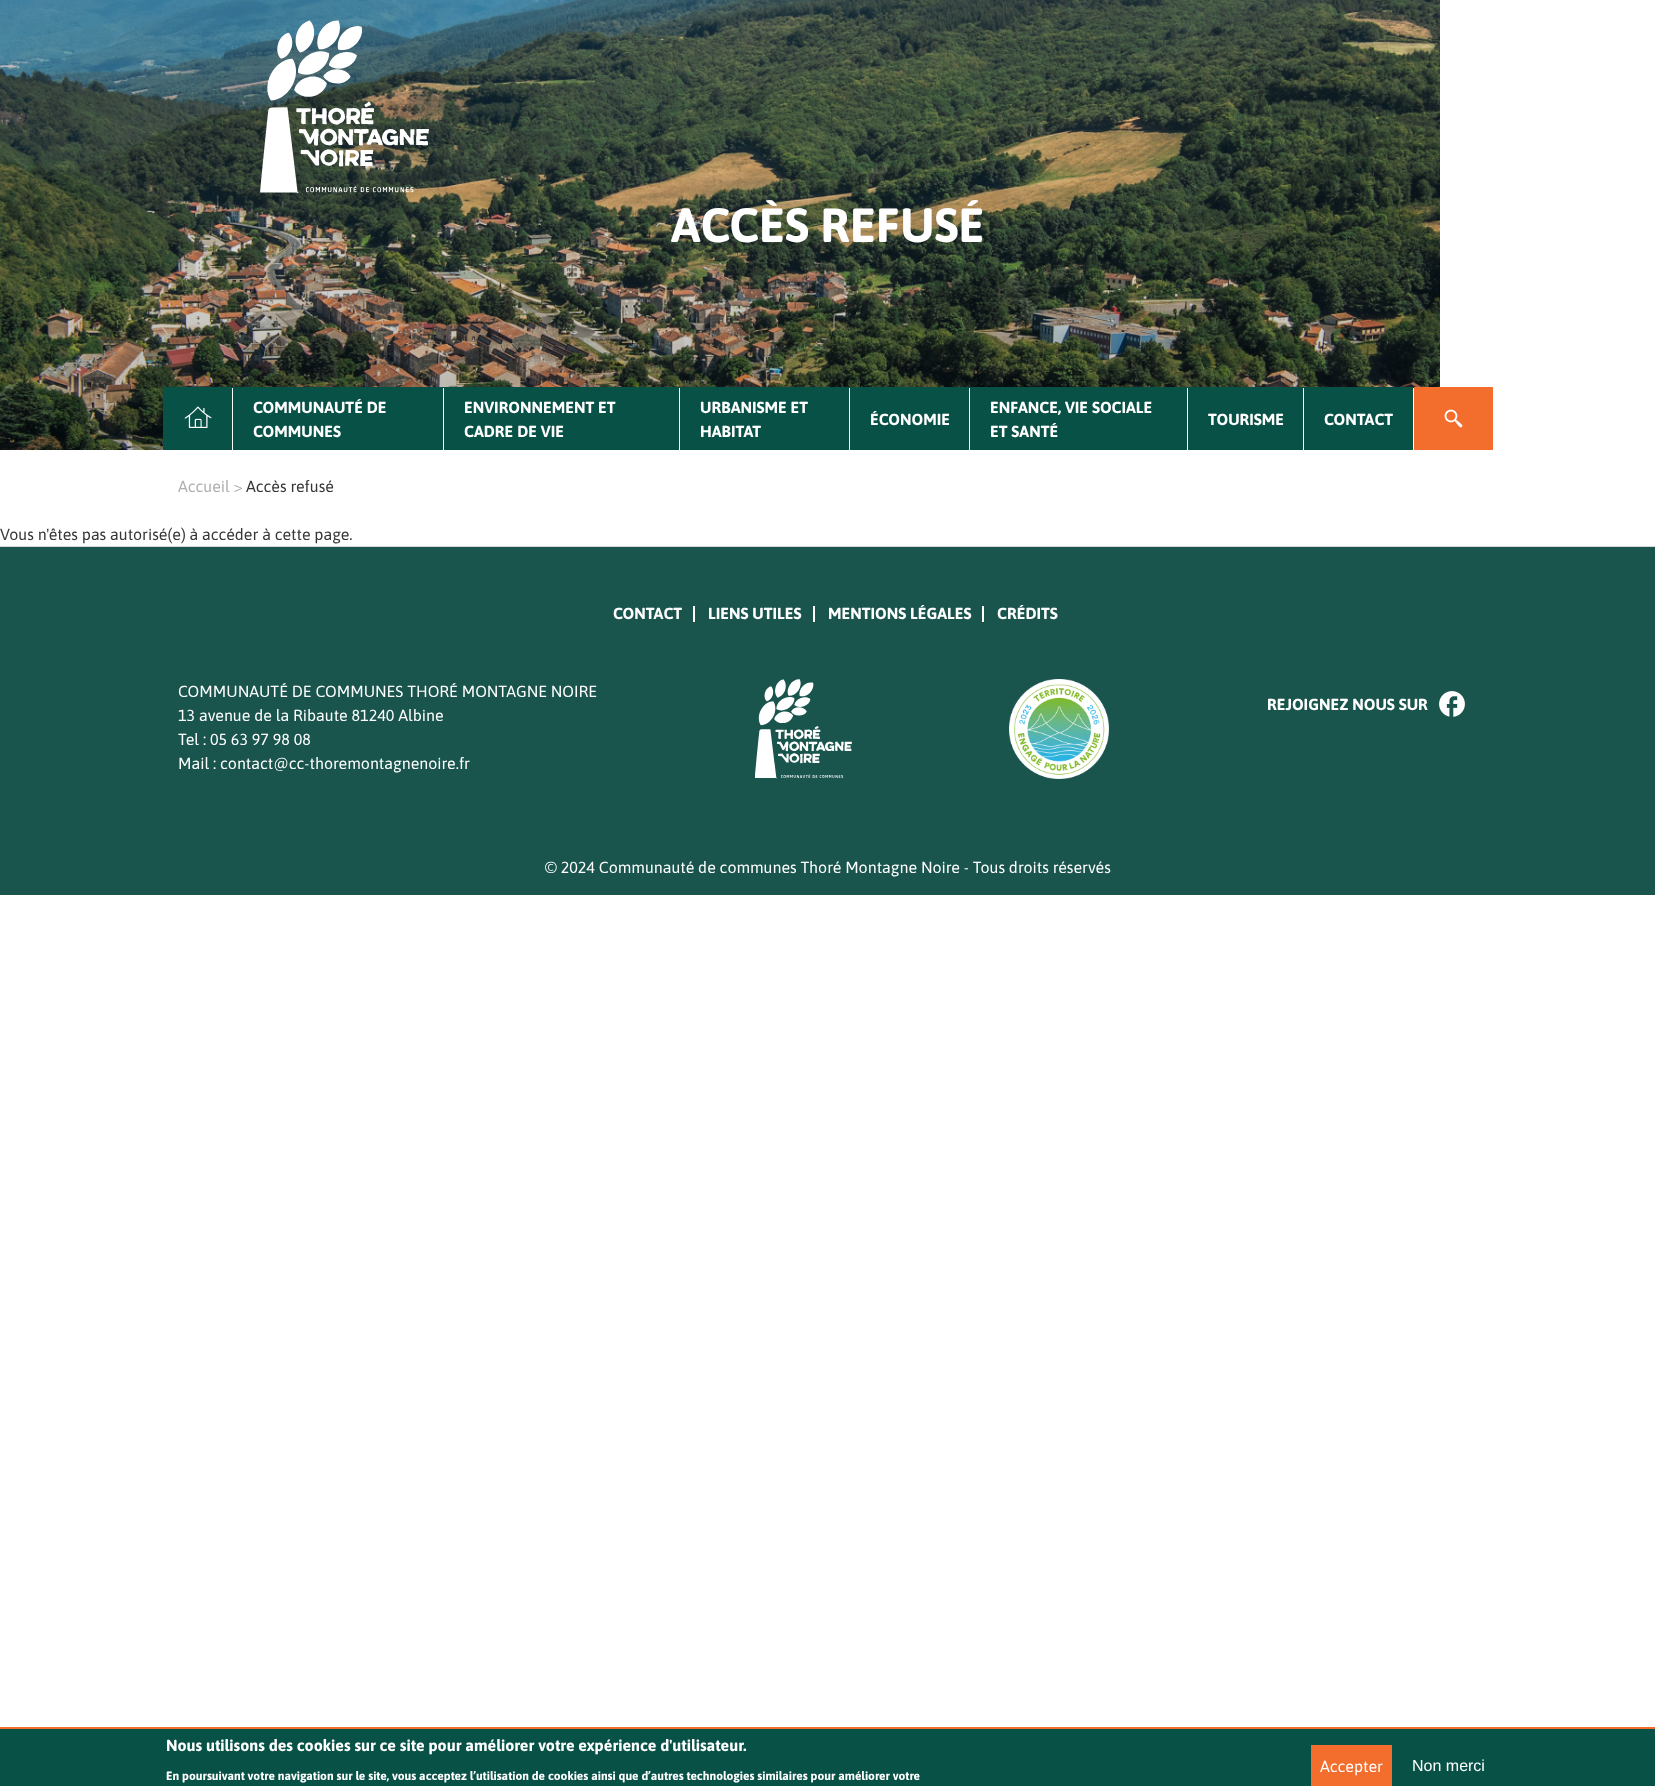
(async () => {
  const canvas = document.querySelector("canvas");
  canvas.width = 1655;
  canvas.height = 1786;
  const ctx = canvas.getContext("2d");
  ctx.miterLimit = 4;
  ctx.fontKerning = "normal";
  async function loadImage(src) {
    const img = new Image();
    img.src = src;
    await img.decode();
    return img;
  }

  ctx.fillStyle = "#ffffff";
  ctx.fillRect(0, 0, 1655, 1786);
  ctx.drawImage(await loadImage("img/1.png"), 0, 0, 1440, 450);
  ctx.drawImage(await loadImage("img/2.png"), 260, 20, 169, 174);
  ctx.fillStyle = "#075146";
  ctx.fillRect(163, 387, 1251, 63);
  ctx.drawImage(await loadImage("img/3.png"), 184, 406, 28, 22);
  for (const [x, y, w, h, color] of [
    [232, 388, 1, 63, "#ffffff"],
    [443, 388, 1, 63, "#ffffff"],
    [679, 388, 1, 63, "#ffffff"],
    [849, 388, 1, 63, "#ffffff"],
    [969, 388, 1, 63, "#ffffff"],
    [1187, 388, 1, 63, "#ffffff"],
    [1303, 388, 1, 63, "#ffffff"],
    [1413, 388, 1, 63, "#ffffff"],
    [1414, 387, 79, 63, "#f36d2d"],
  ]) {
    ctx.fillStyle = color;
    ctx.fillRect(x, y, w, h);
  }
  ctx.drawImage(await loadImage("img/4.png"), 1444, 409, 19, 19);
  for (const [x, y, w, h, color] of [
    [0, 547, 1655, 348, "#19544d"],
    [0, 546, 1655, 1, "#d8d8d8"],
    [693, 606, 2, 16, "#ffffff"],
    [813, 606, 2, 16, "#ffffff"],
    [982, 606, 2, 16, "#ffffff"],
  ]) {
    ctx.fillStyle = color;
    ctx.fillRect(x, y, w, h);
  }
  ctx.drawImage(await loadImage("img/5.png"), 755, 679, 97, 100);
  ctx.drawImage(await loadImage("img/6.png"), 1009, 679, 100, 100);
  ctx.drawImage(await loadImage("img/7.png"), 1439, 691, 26, 26);
  for (const [x, y, w, h, color] of [
    [0, 1729, 1655, 57, "#075146"],
    [0, 1727, 1655, 2, "#f36d2d"],
    [1311, 1745, 81, 41, "#f36d2d"],
  ]) {
    ctx.fillStyle = color;
    ctx.fillRect(x, y, w, h);
  }
  ctx.font = "bold 48px Asap";
  ctx.fillStyle = "#ffffff";
  ctx.fillText("ACCÈS REFUSÉ", 671, 242);
  ctx.font = "bold 16px Asap";
  for (const [text, x, y] of [
    ["COMMUNAUTÉ DE", 253, 413],
    ["COMMUNES", 253, 437],
    ["ENVIRONNEMENT ET", 464, 413],
    ["CADRE DE VIE", 464, 437],
    ["URBANISME ET", 700, 413],
    ["HABITAT", 700, 437],
    ["ÉCONOMIE", 870, 425],
    ["ENFANCE, VIE SOCIALE", 990, 413],
    ["ET SANTÉ", 990, 437],
    ["TOURISME", 1208, 425],
    ["CONTACT", 1324, 425],
  ]) {
    ctx.fillText(text, x, y);
  }
  ctx.font = "16px Asap";
  ctx.fillStyle = "#afafaf";
  ctx.fillText("Accueil >", 178, 492);
  ctx.fillStyle = "#363636";
  ctx.fillText("Accès refusé", 246, 492);
  ctx.fillText("Vous n'êtes pas autorisé(e) à accéder à cette page.", 0, 540);
  ctx.font = "bold 16px Asap";
  ctx.fillStyle = "#ffffff";
  for (const [text, x, y] of [
    ["CONTACT", 613, 619],
    ["LIENS UTILES", 708, 619],
    ["MENTIONS LÉGALES", 828, 619],
    ["CRÉDITS", 997, 619],
  ]) {
    ctx.fillText(text, x, y);
  }
  ctx.font = "16px Asap";
  for (const [text, x, y] of [
    ["COMMUNAUTÉ DE COMMUNES THORÉ MONTAGNE NOIRE", 178, 697],
    ["13 avenue de la Ribaute 81240 Albine", 178, 721],
    ["Tel : 05 63 97 98 08", 178, 745],
    ["Mail : contact@cc-thoremontagnenoire.fr", 178, 769],
  ]) {
    ctx.fillText(text, x, y);
  }
  ctx.font = "bold 16px Asap";
  ctx.fillText("REJOIGNEZ NOUS SUR", 1267, 710);
  ctx.font = "16px Asap";
  ctx.fillText("© 2024 Communauté de communes Thoré Montagne Noire - Tous droits réservés", 545, 873);
  ctx.font = "bold 16px Asap";
  ctx.fillText("Nous utilisons des cookies sur ce site pour améliorer votre expérience d'utilisateur.", 166, 1751);
  ctx.font = "bold 12px Asap";
  ctx.fillText("En poursuivant votre navigation sur le site, vous acceptez l’utilisation de cookies ainsi que d’autres technologies similaires pour améliorer votre", 166, 1780);
  ctx.font = "16px Asap";
  ctx.fillText("Accepter", 1320, 1772);
  ctx.font = "16px Liberation Sans";
  ctx.fillText("Non merci", 1412, 1771);
})();
